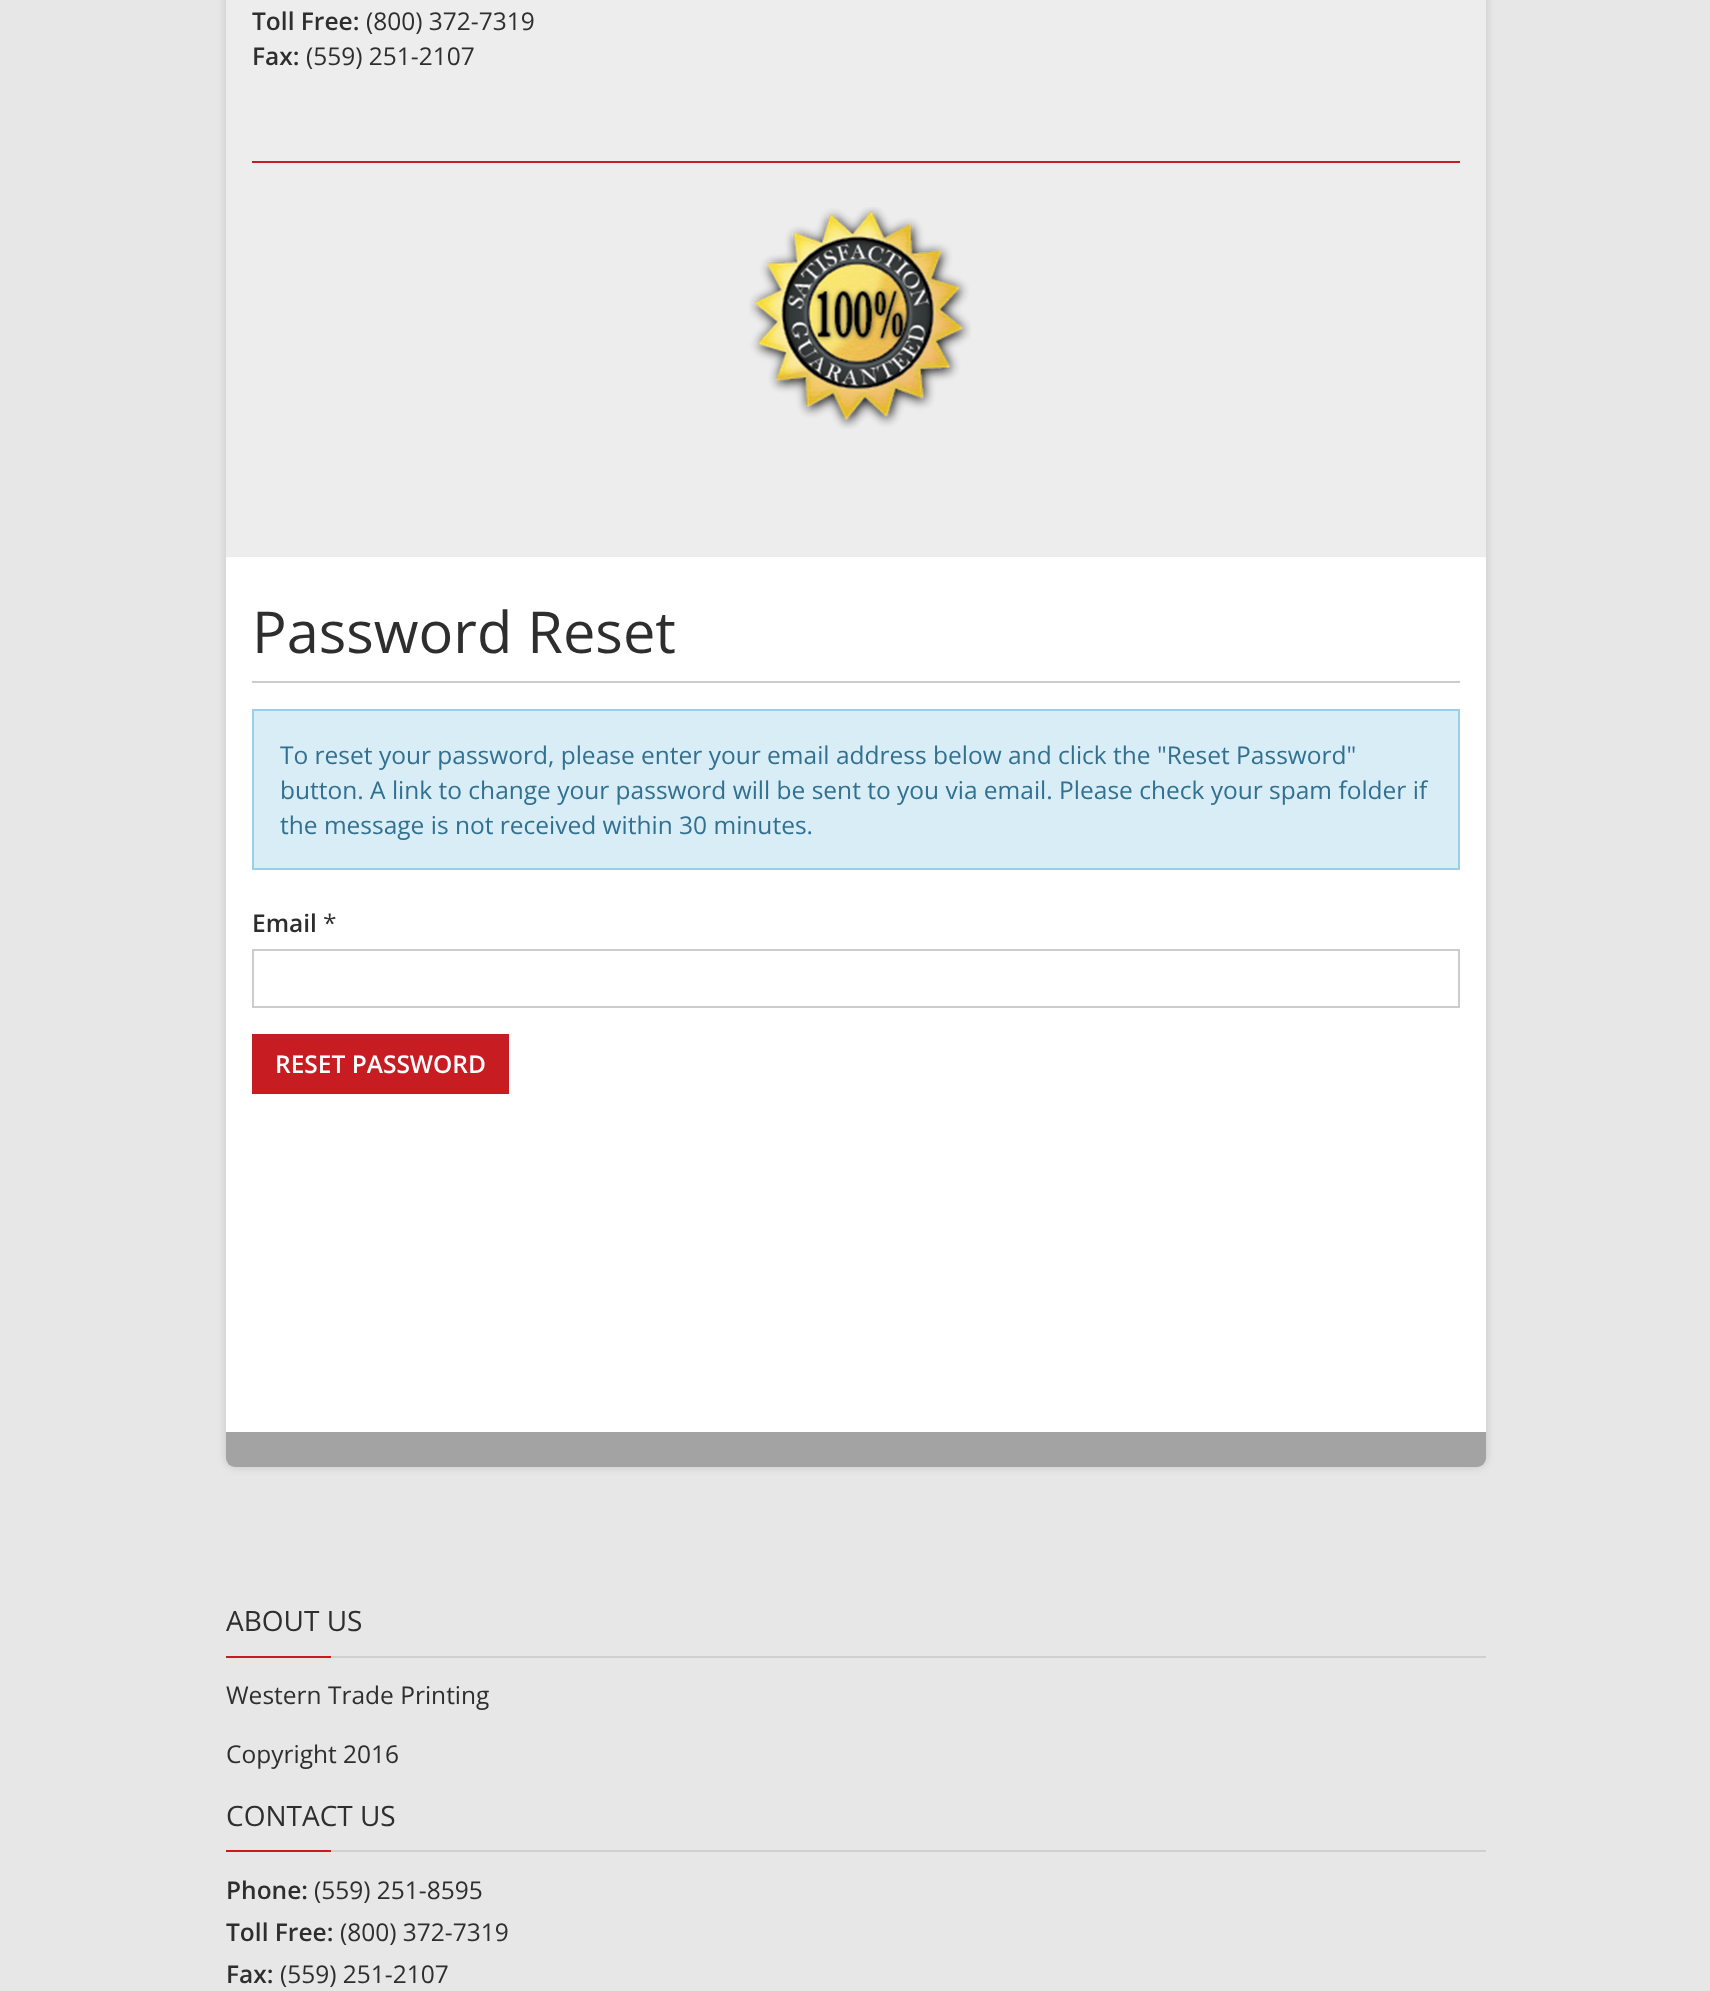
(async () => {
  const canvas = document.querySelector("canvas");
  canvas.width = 1710;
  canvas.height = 1991;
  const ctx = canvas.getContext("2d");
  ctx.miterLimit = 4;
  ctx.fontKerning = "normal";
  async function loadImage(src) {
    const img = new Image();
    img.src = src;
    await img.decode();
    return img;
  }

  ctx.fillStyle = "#e7e7e7";
  ctx.fillRect(0, 0, 1710, 1991);
  ctx.fillStyle = "rgba(0, 0, 0, 0.15)";
  ctx.filter = "blur(4.5px)";
  ctx.beginPath();
  ctx.roundRect(226, -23, 1260, 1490, 9);
  ctx.fill();
  ctx.filter = "none";
  ctx.fillStyle = "#ededed";
  ctx.fillRect(226, 0, 1260, 557);
  ctx.fillStyle = "#c71c22";
  ctx.fillRect(252, 161, 1208, 2);
  ctx.drawImage(await loadImage("img/1.png"), 749, 207, 222, 222);
  ctx.fillStyle = "#ffffff";
  ctx.fillRect(226, 557, 1260, 875);
  ctx.fillStyle = "#cccccc";
  ctx.fillRect(252, 681, 1208, 2);
  ctx.fillStyle = "#d9edf7";
  ctx.beginPath();
  ctx.rect(253, 710, 1206, 159);
  ctx.fill();
  ctx.strokeStyle = "#9acfea";
  ctx.lineWidth = 2;
  ctx.stroke();
  ctx.strokeStyle = "#cccccc";
  ctx.strokeRect(253, 950, 1206, 57);
  ctx.fillStyle = "#c71c22";
  ctx.fillRect(252, 1034, 257, 60);
  ctx.fillStyle = "#a3a3a3";
  ctx.beginPath();
  ctx.roundRect(226, 1432, 1260, 35, [0, 0, 9, 9]);
  ctx.fill();
  for (const [x, y, w, h, color] of [
    [331, 1656, 1155, 2, "#d0d0d0"],
    [226, 1656, 105, 2, "#c71c22"],
    [331, 1850, 1155, 2, "#d0d0d0"],
    [226, 1850, 105, 2, "#c71c22"],
  ]) {
    ctx.fillStyle = color;
    ctx.fillRect(x, y, w, h);
  }
  ctx.font = "600 24.5px Open Sans";
  ctx.fillStyle = "#2e2e2e";
  ctx.fillText("Toll Free:", 252, 30);
  ctx.font = "24.5px Open Sans";
  ctx.fillText("(800) 372-7319", 366, 30);
  ctx.font = "600 24.5px Open Sans";
  ctx.fillText("Fax:", 252, 65);
  ctx.font = "24.5px Open Sans";
  ctx.fillText("(559) 251-2107", 306, 65);
  ctx.font = "57.75px Open Sans";
  ctx.fillText("Password Reset", 252, 653);
  ctx.font = "24.5px Open Sans";
  ctx.fillStyle = "#31708f";
  for (const [text, x, y] of [
    ["To reset your password, please enter your email address below and click the \"Reset Password\"", 280, 764],
    ["button. A link to change your password will be sent to you via email. Please check your spam folder if", 280, 799],
    ["the message is not received within 30 minutes.", 280, 834],
  ]) {
    ctx.fillText(text, x, y);
  }
  ctx.font = "600 24.5px Open Sans";
  ctx.fillStyle = "#2e2e2e";
  ctx.fillText("Email", 252, 932);
  ctx.font = "24.5px Open Sans";
  ctx.fillText("*", 323, 932);
  ctx.font = "600 24.5px Open Sans";
  ctx.fillStyle = "#ffffff";
  ctx.fillText("RESET PASSWORD", 275, 1073);
  ctx.font = "28px Open Sans";
  ctx.fillStyle = "#2e2e2e";
  ctx.fillText("ABOUT US", 226, 1631);
  ctx.font = "24.5px Open Sans";
  ctx.fillText("Western Trade Printing", 226, 1704);
  ctx.fillText("Copyright 2016", 226, 1763);
  ctx.font = "28px Open Sans";
  ctx.fillText("CONTACT US", 226, 1826);
  ctx.font = "600 24.5px Open Sans";
  ctx.fillText("Phone:", 226, 1899);
  ctx.font = "24.5px Open Sans";
  ctx.fillText("(559) 251-8595", 314, 1899);
  ctx.font = "600 24.5px Open Sans";
  ctx.fillText("Toll Free:", 226, 1941);
  ctx.font = "24.5px Open Sans";
  ctx.fillText("(800) 372-7319", 340, 1941);
  ctx.font = "600 24.5px Open Sans";
  ctx.fillText("Fax:", 226, 1983);
  ctx.font = "24.5px Open Sans";
  ctx.fillText("(559) 251-2107", 280, 1983);
})();
